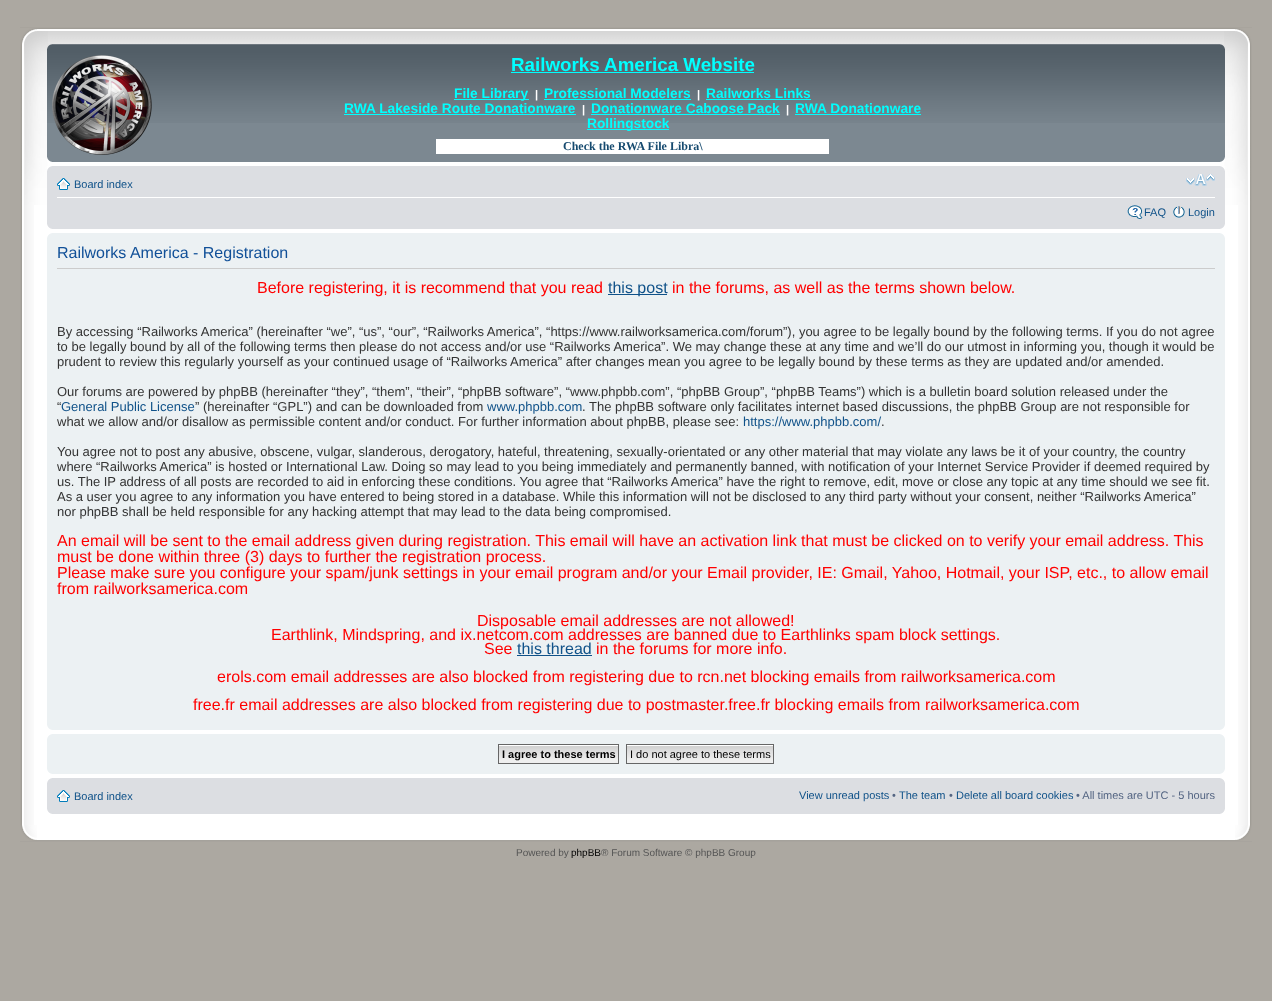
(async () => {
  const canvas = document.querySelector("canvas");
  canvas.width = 1272;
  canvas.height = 1001;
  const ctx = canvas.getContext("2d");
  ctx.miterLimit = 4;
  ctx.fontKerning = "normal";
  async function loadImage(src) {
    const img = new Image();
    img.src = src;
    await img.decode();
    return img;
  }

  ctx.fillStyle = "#aca8a1";
  ctx.fillRect(0, 0, 1272, 1001);
  ctx.fillStyle = "#ffffff";
  ctx.fillRect(34, 162, 1204, 671);
  ctx.drawImage(await loadImage("img/1.png"), 20, 205, 14, 620);
  ctx.drawImage(await loadImage("img/2.png"), 1238, 205, 14, 620);
  ctx.drawImage(await loadImage("img/3.png"), 20, 27, 1232, 17);
  ctx.drawImage(await loadImage("img/4.png"), 20, 28, 28, 177);
  ctx.drawImage(await loadImage("img/5.png"), 1224, 28, 28, 177);
  ctx.fillStyle = "#7c8891";
  ctx.fillRect(47, 123, 1178, 39);
  ctx.drawImage(await loadImage("img/6.png"), 47, 44, 1178, 79);
  ctx.drawImage(await loadImage("img/7.png"), 47, 44, 5, 5);
  ctx.drawImage(await loadImage("img/8.png"), 1220, 44, 5, 5);
  ctx.drawImage(await loadImage("img/9.png"), 52, 55, 100, 100);
  for (const [x, y, w, h, color] of [
    [511, 72, 243, 1, "#00ffff"],
    [454, 99, 75, 1, "#00ffff"],
    [544, 99, 147, 1, "#00ffff"],
    [706, 99, 105, 1, "#00ffff"],
    [344, 114, 232, 1, "#00ffff"],
    [591, 114, 189, 1, "#00ffff"],
    [795, 114, 126, 1, "#00ffff"],
    [587, 129, 82, 1, "#00ffff"],
    [436, 139, 393, 15, "#ffffff"],
  ]) {
    ctx.fillStyle = color;
    ctx.fillRect(x, y, w, h);
  }
  ctx.drawImage(await loadImage("img/10.png"), 47, 157, 5, 5);
  ctx.drawImage(await loadImage("img/11.png"), 1220, 157, 5, 5);
  ctx.fillStyle = "#dcdee2";
  ctx.fillRect(47, 166, 1178, 63);
  ctx.drawImage(await loadImage("img/12.png"), 47, 166, 5, 5);
  ctx.drawImage(await loadImage("img/13.png"), 1220, 166, 5, 5);
  ctx.fillStyle = "#ffffff";
  ctx.fillRect(57, 197, 1158, 1);
  ctx.drawImage(await loadImage("img/14.png"), 57, 178, 13, 12);
  ctx.drawImage(await loadImage("img/15.png"), 1186, 174, 29, 12);
  ctx.drawImage(await loadImage("img/16.png"), 1127, 205, 16, 14);
  ctx.drawImage(await loadImage("img/17.png"), 1173, 206, 12, 12);
  ctx.drawImage(await loadImage("img/18.png"), 47, 224, 5, 5);
  ctx.drawImage(await loadImage("img/19.png"), 1220, 224, 5, 5);
  ctx.fillStyle = "#ecf1f3";
  ctx.fillRect(47, 233, 1178, 497);
  ctx.drawImage(await loadImage("img/20.png"), 47, 233, 5, 5);
  ctx.drawImage(await loadImage("img/21.png"), 1220, 233, 5, 5);
  for (const [x, y, w, h, color] of [
    [57, 268, 1158, 1, "#cccccc"],
    [608, 294, 59, 1, "#105289"],
    [517, 655, 75, 1, "#105289"],
  ]) {
    ctx.fillStyle = color;
    ctx.fillRect(x, y, w, h);
  }
  ctx.drawImage(await loadImage("img/22.png"), 47, 725, 5, 5);
  ctx.drawImage(await loadImage("img/23.png"), 1220, 725, 5, 5);
  ctx.fillStyle = "#ecf1f3";
  ctx.fillRect(47, 734, 1178, 40);
  ctx.drawImage(await loadImage("img/20.png"), 47, 734, 5, 5);
  ctx.drawImage(await loadImage("img/21.png"), 1220, 734, 5, 5);
  ctx.drawImage(await loadImage("img/24.png"), 499, 745, 119, 18);
  ctx.strokeStyle = "#666666";
  ctx.strokeRect(498.5, 744.5, 120, 19);
  ctx.drawImage(await loadImage("img/25.png"), 627, 745, 146, 18);
  ctx.strokeRect(626.5, 744.5, 147, 19);
  ctx.drawImage(await loadImage("img/22.png"), 47, 769, 5, 5);
  ctx.drawImage(await loadImage("img/23.png"), 1220, 769, 5, 5);
  ctx.fillStyle = "#dcdee2";
  ctx.fillRect(47, 778, 1178, 36);
  ctx.drawImage(await loadImage("img/12.png"), 47, 778, 5, 5);
  ctx.drawImage(await loadImage("img/13.png"), 1220, 778, 5, 5);
  ctx.drawImage(await loadImage("img/14.png"), 57, 790, 13, 12);
  ctx.drawImage(await loadImage("img/18.png"), 47, 809, 5, 5);
  ctx.drawImage(await loadImage("img/19.png"), 1220, 809, 5, 5);
  ctx.drawImage(await loadImage("img/26.png"), 20, 833, 1232, 9);
  ctx.drawImage(await loadImage("img/27.png"), 20, 825, 17, 16);
  ctx.drawImage(await loadImage("img/28.png"), 1235, 825, 17, 16);
  ctx.font = "bold 18.75px Liberation Sans";
  ctx.fillStyle = "#00ffff";
  ctx.fillText("Railworks America Website", 511, 71);
  ctx.font = "bold 13.75px Liberation Sans";
  ctx.fillText("File Library", 454, 98);
  ctx.font = "bold 11px Liberation Sans";
  ctx.fillStyle = "#ffffff";
  ctx.fillText("|", 535, 98);
  ctx.font = "bold 13.75px Liberation Sans";
  ctx.fillStyle = "#00ffff";
  ctx.fillText("Professional Modelers", 544, 98);
  ctx.font = "bold 11px Liberation Sans";
  ctx.fillStyle = "#ffffff";
  ctx.fillText("|", 697, 98);
  ctx.font = "bold 13.75px Liberation Sans";
  ctx.fillStyle = "#00ffff";
  ctx.fillText("Railworks Links", 706, 98);
  ctx.fillText("RWA Lakeside Route Donationware", 344, 113);
  ctx.font = "bold 11px Liberation Sans";
  ctx.fillStyle = "#ffffff";
  ctx.fillText("|", 582, 113);
  ctx.font = "bold 13.75px Liberation Sans";
  ctx.fillStyle = "#00ffff";
  ctx.fillText("Donationware Caboose Pack", 591, 113);
  ctx.font = "bold 11px Liberation Sans";
  ctx.fillStyle = "#ffffff";
  ctx.fillText("|", 786, 113);
  ctx.font = "bold 13.75px Liberation Sans";
  ctx.fillStyle = "#00ffff";
  ctx.fillText("RWA Donationware", 795, 113);
  ctx.fillText("Rollingstock", 587, 128);
  ctx.font = "bold 12px Liberation Serif";
  ctx.fillStyle = "#164a6f";
  ctx.fillText("Check the RWA File Libra\\", 563, 150);
  ctx.font = "11px Liberation Sans";
  ctx.fillStyle = "#105289";
  for (const [text, x, y] of [
    ["Board index", 74, 188],
    ["FAQ", 1144, 216],
    ["Login", 1188, 216],
  ]) {
    ctx.fillText(text, x, y);
  }
  ctx.font = "16px Liberation Sans";
  ctx.fillStyle = "#115098";
  ctx.fillText("Railworks America - Registration", 57, 258);
  ctx.fillStyle = "#ff0000";
  ctx.fillText("Before registering, it is recommend that you read", 257, 293);
  ctx.fillStyle = "#105289";
  ctx.fillText("this post", 608, 293);
  ctx.fillStyle = "#ff0000";
  ctx.fillText("in the forums, as well as the terms shown below.", 672, 293);
  ctx.font = "13px Liberation Sans";
  ctx.fillStyle = "#333333";
  for (const [text, x, y] of [
    ["By accessing “Railworks America” (hereinafter “we”, “us”, “our”, “Railworks America”, “https://www.railworksamerica.com/forum”), you agree to be legally bound by the following terms. If you do not agree", 57, 336],
    ["to be legally bound by all of the following terms then please do not access and/or use “Railworks America”. We may change these at any time and we’ll do our utmost in informing you, though it would be", 57, 351],
    ["prudent to review this regularly yourself as your continued usage of “Railworks America” after changes mean you agree to be legally bound by these terms as they are updated and/or amended.", 57, 366],
    ["Our forums are powered by phpBB (hereinafter “they”, “them”, “their”, “phpBB software”, “www.phpbb.com”, “phpBB Group”, “phpBB Teams”) which is a bulletin board solution released under the", 57, 396],
    ["“", 57, 411],
  ]) {
    ctx.fillText(text, x, y);
  }
  ctx.fillStyle = "#105289";
  ctx.fillText("General Public License", 61, 411);
  ctx.fillStyle = "#333333";
  ctx.fillText("” (hereinafter “GPL”) and can be downloaded from", 195, 411);
  ctx.fillStyle = "#105289";
  ctx.fillText("www.phpbb.com", 487, 411);
  ctx.fillStyle = "#333333";
  ctx.fillText(". The phpBB software only facilitates internet based discussions, the phpBB Group are not responsible for", 582, 411);
  ctx.fillText("what we allow and/or disallow as permissible content and/or conduct. For further information about phpBB, please see:", 57, 426);
  ctx.fillStyle = "#105289";
  ctx.fillText("https://www.phpbb.com/", 743, 426);
  ctx.fillStyle = "#333333";
  for (const [text, x, y] of [
    [".", 881, 426],
    ["You agree not to post any abusive, obscene, vulgar, slanderous, derogatory, hateful, threatening, sexually-orientated or any other material that may violate any laws be it of your country, the country", 57, 456],
    ["where “Railworks America” is hosted or International Law. Doing so may lead to you being immediately and permanently banned, with notification of your Internet Service Provider if deemed required by", 57, 471],
    ["us. The IP address of all posts are recorded to aid in enforcing these conditions. You agree that “Railworks America” have the right to remove, edit, move or close any topic at any time should we see fit.", 57, 486],
    ["As a user you agree to any information you have entered to being stored in a database. While this information will not be disclosed to any third party without your consent, neither “Railworks America”", 57, 501],
    ["nor phpBB shall be held responsible for any hacking attempt that may lead to the data being compromised.", 57, 516],
  ]) {
    ctx.fillText(text, x, y);
  }
  ctx.font = "16px Liberation Sans";
  ctx.fillStyle = "#ff0000";
  for (const [text, x, y] of [
    ["An email will be sent to the email address given during registration. This email will have an activation link that must be clicked on to verify your email address. This", 57, 546],
    ["must be done within three (3) days to further the registration process.", 57, 562],
    ["Please make sure you configure your spam/junk settings in your email program and/or your Email provider, IE: Gmail, Yahoo, Hotmail, your ISP, etc., to allow email", 57, 578],
    ["from railworksamerica.com", 57, 594],
    ["Disposable email addresses are not allowed!", 477, 626],
    ["Earthlink, Mindspring, and ix.netcom.com addresses are banned due to Earthlinks spam block settings.", 271, 640],
    ["See", 484, 654],
  ]) {
    ctx.fillText(text, x, y);
  }
  ctx.fillStyle = "#105289";
  ctx.fillText("this thread", 517, 654);
  ctx.fillStyle = "#ff0000";
  for (const [text, x, y] of [
    ["in the forums for more info.", 596, 654],
    ["erols.com email addresses are also blocked from registering due to rcn.net blocking emails from railworksamerica.com", 217, 682],
    ["free.fr email addresses are also blocked from registering due to postmaster.free.fr blocking emails from railworksamerica.com", 193, 710],
  ]) {
    ctx.fillText(text, x, y);
  }
  ctx.font = "bold 11px Liberation Sans";
  ctx.fillStyle = "#000000";
  ctx.fillText("I agree to these terms", 502, 758);
  ctx.font = "11px Liberation Sans";
  ctx.fillText("I do not agree to these terms", 630, 758);
  ctx.fillStyle = "#105289";
  ctx.fillText("Board index", 74, 800);
  ctx.fillText("View unread posts", 799, 799);
  ctx.fillStyle = "#536482";
  ctx.fillText("•", 892, 799);
  ctx.fillStyle = "#105289";
  ctx.fillText("The team", 899, 799);
  ctx.fillStyle = "#536482";
  ctx.fillText("•", 949, 799);
  ctx.fillStyle = "#105289";
  ctx.fillText("Delete all board cookies", 956, 799);
  ctx.fillStyle = "#536482";
  ctx.fillText("• All times are UTC - 5 hours", 1076, 799);
  ctx.font = "10px Liberation Sans";
  ctx.fillStyle = "#555555";
  ctx.fillText("Powered by", 516, 856);
  ctx.fillStyle = "#000000";
  ctx.fillText("phpBB", 571, 856);
  ctx.fillStyle = "#555555";
  ctx.fillText("® Forum Software © phpBB Group", 601, 856);
})();
